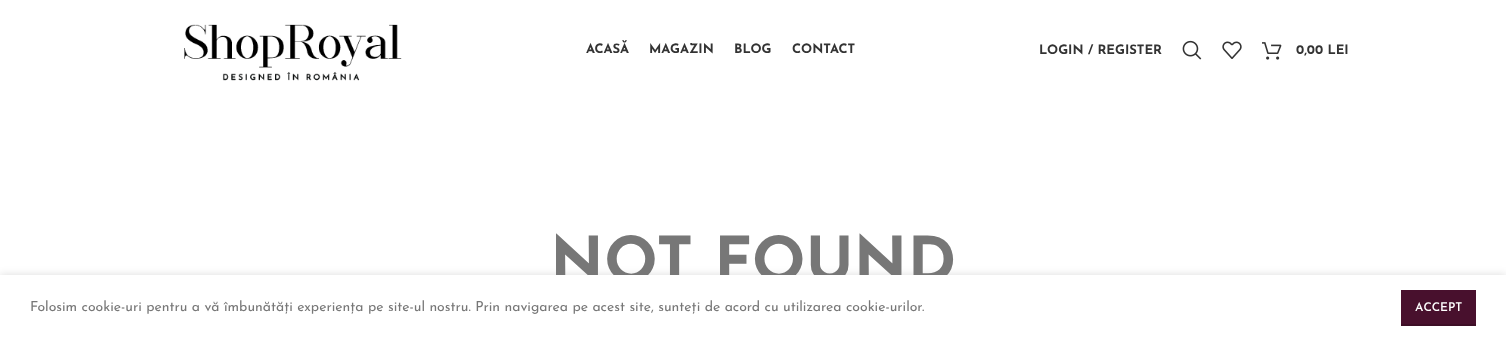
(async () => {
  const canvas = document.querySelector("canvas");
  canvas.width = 1506;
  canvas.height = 341;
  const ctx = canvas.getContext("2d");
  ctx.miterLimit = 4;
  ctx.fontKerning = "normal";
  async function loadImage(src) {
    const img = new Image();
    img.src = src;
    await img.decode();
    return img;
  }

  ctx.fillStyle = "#ffffff";
  ctx.fillRect(0, 0, 1506, 341);
  ctx.drawImage(await loadImage("img/1.png"), 184, 24, 218, 57);
  ctx.drawImage(await loadImage("img/2.png"), 1182, 40, 20, 20);
  ctx.drawImage(await loadImage("img/3.png"), 1222, 41, 20, 18);
  ctx.drawImage(await loadImage("img/4.png"), 1262, 42, 20, 18);
  ctx.fillStyle = "rgba(0, 0, 0, 0.14)";
  ctx.filter = "blur(4.5px)";
  ctx.beginPath();
  ctx.rect(0, 275, 1506, 66);
  ctx.fill();
  ctx.filter = "none";
  ctx.font = "bold 13px Josefin Sans";
  ctx.fillStyle = "#333333";
  for (const [text, x, y] of [
    ["ACASĂ", 586, 53],
    ["MAGAZIN", 649, 53],
    ["BLOG", 734, 53],
    ["CONTACT", 792, 53],
    ["LOGIN / REGISTER", 1039, 54],
    ["0,00 LEI", 1296, 54],
  ]) {
    ctx.fillText(text, x, y);
  }
  ctx.font = "bold 63.25px Josefin Sans";
  ctx.fillStyle = "#777777";
  ctx.fillText("NOT FOUND", 550, 282);
  ctx.fillStyle = "#ffffff";
  ctx.fillRect(0, 275, 1506, 66);
  ctx.font = "14px Josefin Sans";
  ctx.fillStyle = "#777777";
  ctx.fillText("Folosim cookie-uri pentru a vă îmbunătăți experiența pe site-ul nostru. Prin navigarea pe acest site, sunteți de acord cu utilizarea cookie-urilor.", 30, 311);
  ctx.fillStyle = "#48102d";
  ctx.fillRect(1401, 290, 75, 34);
  ctx.fillStyle = "#3d0e26";
  ctx.fillRect(1401, 324, 75, 2);
  ctx.font = "600 12px Josefin Sans";
  ctx.fillStyle = "#ffffff";
  ctx.fillText("ACCEPT", 1415, 311);
})();
